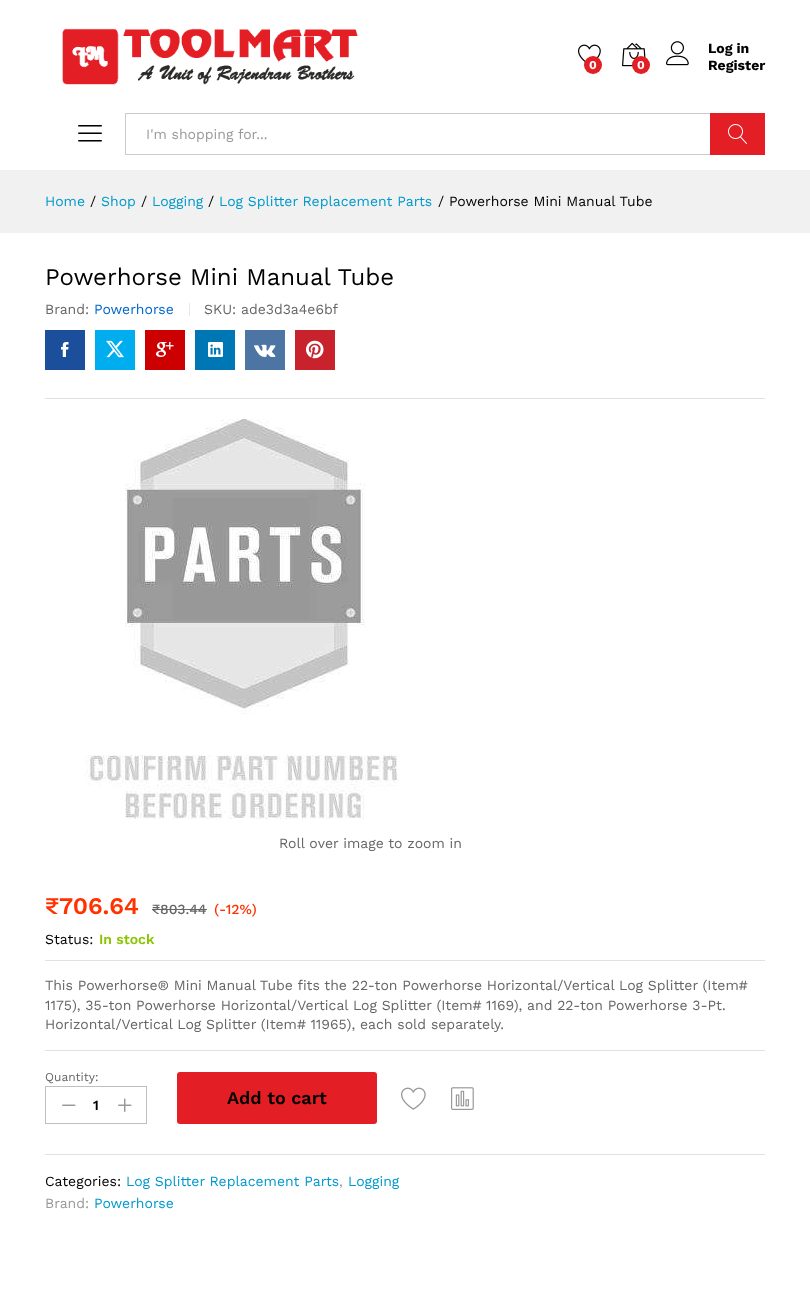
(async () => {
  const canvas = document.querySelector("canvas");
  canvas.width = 810;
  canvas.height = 1314;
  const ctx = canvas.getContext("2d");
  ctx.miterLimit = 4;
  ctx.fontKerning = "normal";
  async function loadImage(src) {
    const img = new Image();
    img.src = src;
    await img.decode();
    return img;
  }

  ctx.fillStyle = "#ffffff";
  ctx.fillRect(0, 0, 810, 1314);
  ctx.drawImage(await loadImage("img/1.png"), 62, 28, 296, 57);
  ctx.drawImage(await loadImage("img/2.png"), 578, 44, 23, 18);
  ctx.fillStyle = "#e31e24";
  ctx.beginPath();
  ctx.arc(593, 65, 9, 0, Math.PI * 2);
  ctx.fill();
  ctx.drawImage(await loadImage("img/3.png"), 622, 42, 24, 25);
  ctx.beginPath();
  ctx.arc(641, 65, 9, 0, Math.PI * 2);
  ctx.fill();
  ctx.drawImage(await loadImage("img/4.png"), 666, 41, 23, 25);
  ctx.drawImage(await loadImage("img/5.png"), 78, 125, 24, 17);
  for (const [x, y, w, h, color] of [
    [125, 113, 585, 1, "#cccccc"],
    [125, 154, 585, 1, "#cccccc"],
    [125, 113, 1, 42, "#cccccc"],
    [710, 113, 55, 42, "#e31e24"],
  ]) {
    ctx.fillStyle = color;
    ctx.fillRect(x, y, w, h);
  }
  ctx.drawImage(await loadImage("img/6.png"), 728, 124, 19, 20);
  for (const [x, y, w, h, color] of [
    [0, 170, 810, 63, "#f1f1f1"],
    [45, 398, 720, 1, "#e1e1e1"],
    [189, 303, 1, 13, "#e8e8e8"],
    [45, 330, 40, 40, "#1b4e9b"],
  ]) {
    ctx.fillStyle = color;
    ctx.fillRect(x, y, w, h);
  }
  ctx.drawImage(await loadImage("img/7.png"), 61, 342, 8, 15);
  ctx.fillStyle = "#00aeef";
  ctx.fillRect(95, 330, 40, 40);
  ctx.drawImage(await loadImage("img/8.png"), 106, 340, 18, 18);
  ctx.fillStyle = "#cc0000";
  ctx.fillRect(145, 330, 40, 40);
  ctx.drawImage(await loadImage("img/9.png"), 156, 342, 18, 15);
  ctx.fillStyle = "#0077b5";
  ctx.fillRect(195, 330, 40, 40);
  ctx.drawImage(await loadImage("img/10.png"), 208, 342, 15, 15);
  ctx.fillStyle = "#4c75a3";
  ctx.fillRect(245, 330, 40, 40);
  ctx.drawImage(await loadImage("img/11.png"), 254, 344, 22, 13);
  ctx.fillStyle = "#c8232c";
  ctx.fillRect(295, 330, 40, 40);
  ctx.drawImage(await loadImage("img/12.png"), 306, 340, 18, 19);
  ctx.drawImage(await loadImage("img/13.png"), 85, 419, 314, 400);
  for (const [x, y, w, h, color] of [
    [152, 909, 55, 1, "#666666"],
    [45, 960, 720, 1, "#e1e1e1"],
    [45, 1050, 720, 1, "#e1e1e1"],
  ]) {
    ctx.fillStyle = color;
    ctx.fillRect(x, y, w, h);
  }
  ctx.strokeStyle = "#bfbfbf";
  ctx.strokeRect(45.5, 1086.5, 101, 37);
  ctx.drawImage(await loadImage("img/14.png"), 62, 1104, 14, 2);
  ctx.drawImage(await loadImage("img/15.png"), 118, 1098, 14, 14);
  ctx.fillStyle = "#e31e24";
  ctx.beginPath();
  ctx.roundRect(177, 1072, 200, 52, 3);
  ctx.fill();
  ctx.drawImage(await loadImage("img/16.png"), 401, 1087, 25, 23);
  ctx.drawImage(await loadImage("img/17.png"), 451, 1087, 23, 23);
  ctx.fillStyle = "#e1e1e1";
  ctx.fillRect(45, 1154, 720, 1);
  ctx.font = "bold 12px Work Sans";
  ctx.fillStyle = "#ffffff";
  ctx.fillText("0", 589, 69);
  ctx.fillText("0", 637, 69);
  ctx.font = "bold 14px Work Sans";
  ctx.fillStyle = "#000000";
  ctx.fillText("Log in", 708, 53);
  ctx.fillText("Register", 708, 70);
  ctx.font = "14px Work Sans";
  ctx.fillStyle = "#999999";
  ctx.fillText("I'm shopping for...", 146, 139);
  ctx.fillStyle = "#0099cc";
  ctx.fillText("Home", 45, 206);
  ctx.fillStyle = "#000000";
  ctx.fillText("/", 90, 206);
  ctx.fillStyle = "#0099cc";
  ctx.fillText("Shop", 101, 206);
  ctx.fillStyle = "#000000";
  ctx.fillText("/", 141, 206);
  ctx.fillStyle = "#0099cc";
  ctx.fillText("Logging", 152, 206);
  ctx.fillStyle = "#000000";
  ctx.fillText("/", 208, 206);
  ctx.fillStyle = "#0099cc";
  ctx.fillText("Log Splitter Replacement Parts", 219, 206);
  ctx.fillStyle = "#000000";
  ctx.fillText("/ Powerhorse Mini Manual Tube", 438, 206);
  ctx.font = "24px Work Sans";
  ctx.fillText("Powerhorse Mini Manual Tube", 45, 285);
  ctx.font = "14px Work Sans";
  ctx.fillStyle = "#666666";
  ctx.fillText("Brand:", 45, 314);
  ctx.fillStyle = "#0066cc";
  ctx.fillText("Powerhorse", 94, 314);
  ctx.fillStyle = "#666666";
  ctx.fillText("SKU: ade3d3a4e6bf", 204, 314);
  ctx.fillText("Roll over image to zoom in", 279, 848);
  ctx.font = "600 24px Work Sans";
  ctx.fillStyle = "#ff3300";
  ctx.fillText("₹706.64", 45, 914);
  ctx.font = "500 14px Work Sans";
  ctx.fillStyle = "#666666";
  ctx.fillText("₹803.44", 152, 914);
  ctx.fillStyle = "#ff3300";
  ctx.fillText("(-12%)", 214, 914);
  ctx.font = "14px Work Sans";
  ctx.fillStyle = "#000000";
  ctx.fillText("Status:", 45, 944);
  ctx.font = "600 14px Work Sans";
  ctx.fillStyle = "#8bc500";
  ctx.fillText("In stock", 99, 944);
  ctx.font = "14px Work Sans";
  ctx.fillStyle = "#666666";
  for (const [text, x, y] of [
    ["This Powerhorse® Mini Manual Tube fits the 22-ton Powerhorse Horizontal/Vertical Log Splitter (Item#", 45, 990],
    ["1175), 35-ton Powerhorse Horizontal/Vertical Log Splitter (Item# 1169), and 22-ton Powerhorse 3-Pt.", 45, 1010],
    ["Horizontal/Vertical Log Splitter (Item# 11965), each sold separately.", 45, 1029],
  ]) {
    ctx.fillText(text, x, y);
  }
  ctx.font = "12px Work Sans";
  ctx.fillText("Quantity:", 45, 1081);
  ctx.font = "600 14px Work Sans";
  ctx.fillStyle = "#000000";
  ctx.fillText("1", 93, 1110);
  ctx.font = "600 18px Work Sans";
  ctx.fillText("Add to cart", 227, 1104);
  ctx.font = "14px Work Sans";
  ctx.fillText("Categories:", 45, 1186);
  ctx.fillStyle = "#0099cc";
  ctx.fillText("Log Splitter Replacement Parts", 126, 1186);
  ctx.fillStyle = "#999999";
  ctx.fillText(",", 339, 1186);
  ctx.fillStyle = "#0099cc";
  ctx.fillText("Logging", 348, 1186);
  ctx.fillStyle = "#999999";
  ctx.fillText("Brand:", 45, 1208);
  ctx.fillStyle = "#0099cc";
  ctx.fillText("Powerhorse", 94, 1208);
})();
